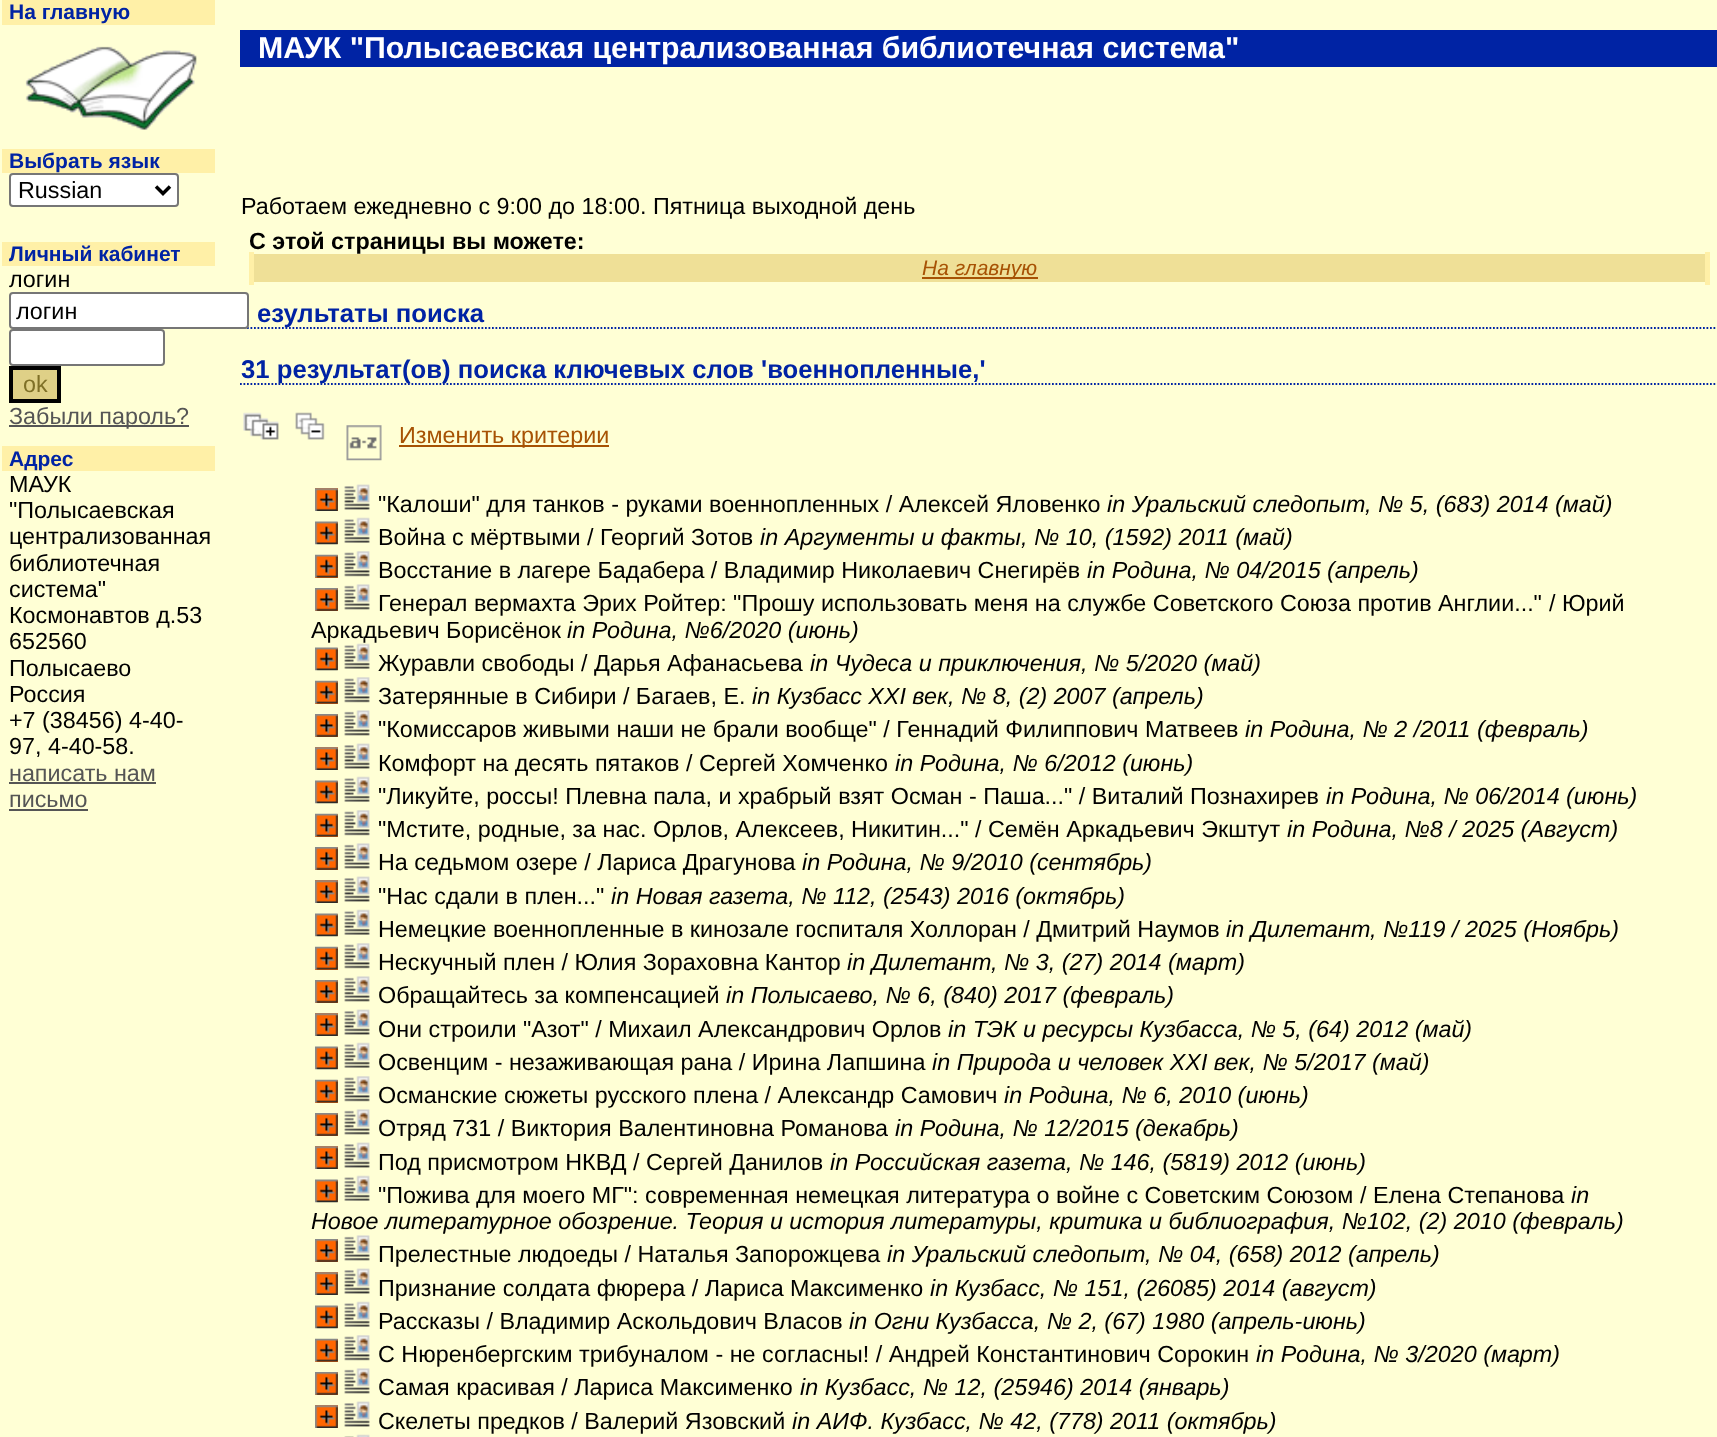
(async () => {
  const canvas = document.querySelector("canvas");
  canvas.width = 1717;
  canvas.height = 1437;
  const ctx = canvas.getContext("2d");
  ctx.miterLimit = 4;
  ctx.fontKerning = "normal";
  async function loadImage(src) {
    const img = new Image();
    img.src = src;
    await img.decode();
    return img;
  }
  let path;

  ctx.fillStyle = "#ffffd5";
  ctx.fillRect(0, 0, 1717, 1437);
  ctx.fillStyle = "#fff0a7";
  ctx.fillRect(2, 0, 213, 25);
  ctx.drawImage(await loadImage("img/1.png"), 25, 46, 172, 84);
  ctx.fillRect(2, 149, 213, 24);
  ctx.fillStyle = "#ffffff";
  ctx.beginPath();
  ctx.roundRect(10, 174, 168, 32, 3);
  ctx.fill();
  ctx.strokeStyle = "#767676";
  ctx.lineWidth = 2;
  ctx.stroke();
  path = new Path2D("M156 186.5L163 193.5L170 186.5");
  ctx.strokeStyle = "#000000";
  ctx.lineWidth = 3.5;
  ctx.stroke(path);
  ctx.fillStyle = "#fff0a7";
  ctx.fillRect(2, 242, 213, 24);
  path = new Path2D("M240 328H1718.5");
  ctx.strokeStyle = "#0023a4";
  ctx.lineWidth = 1.8;
  ctx.setLineDash([1.75, 1.75]);
  ctx.stroke(path);
  ctx.fillStyle = "#ffffff";
  ctx.beginPath();
  ctx.roundRect(10, 293, 238, 35, 3);
  ctx.fill();
  ctx.strokeStyle = "#767676";
  ctx.lineWidth = 2;
  ctx.setLineDash([]);
  ctx.stroke();
  ctx.beginPath();
  ctx.roundRect(10, 330, 154, 35, 3);
  ctx.fill();
  ctx.stroke();
  ctx.fillStyle = "#dfd087";
  ctx.beginPath();
  ctx.rect(11, 368, 48, 33);
  ctx.fill();
  ctx.strokeStyle = "#000000";
  ctx.lineWidth = 4;
  ctx.stroke();
  for (const [x, y, w, h, color] of [
    [9, 425, 180, 2, "#555555"],
    [2, 446, 213, 25, "#fff0a7"],
    [9, 782, 147, 2, "#555555"],
    [9, 809, 79, 2, "#555555"],
    [240, 30, 1477, 37, "#0023a4"],
    [254, 254, 1451, 28, "#efe097"],
    [1705, 252, 5, 33, "#fff0a7"],
    [249, 252, 5, 33, "#fff0a7"],
    [922, 277, 116, 2, "#a75204"],
  ]) {
    ctx.fillStyle = color;
    ctx.fillRect(x, y, w, h);
  }
  path = new Path2D("M240 384H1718.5");
  ctx.strokeStyle = "#0023a4";
  ctx.lineWidth = 1.8;
  ctx.setLineDash([1.75, 1.75]);
  ctx.stroke(path);
  ctx.drawImage(await loadImage("img/2.png"), 243, 412, 36, 28);
  ctx.drawImage(await loadImage("img/3.png"), 295, 412, 30, 28);
  ctx.drawImage(await loadImage("img/4.png"), 346, 425, 36, 36);
  ctx.fillRect(399, 445, 210, 2);
  ctx.fillStyle = "#ff6600";
  ctx.fillRect(315, 488, 23, 23);
  ctx.drawImage(await loadImage("img/5.png"), 344, 484, 26, 26);
  ctx.drawImage(await loadImage("img/6.png"), 315, 488, 23, 23);
  ctx.fillRect(316, 522, 22, 22);
  ctx.drawImage(await loadImage("img/7.png"), 315, 521, 23, 24);
  ctx.drawImage(await loadImage("img/8.png"), 344, 517, 26, 26);
  ctx.fillRect(315, 555, 23, 23);
  ctx.drawImage(await loadImage("img/9.png"), 315, 554, 23, 24);
  ctx.drawImage(await loadImage("img/10.png"), 344, 551, 26, 26);
  ctx.fillRect(315, 588, 23, 23);
  ctx.drawImage(await loadImage("img/11.png"), 344, 584, 26, 26);
  ctx.drawImage(await loadImage("img/12.png"), 315, 588, 23, 23);
  ctx.fillRect(316, 648, 22, 22);
  ctx.drawImage(await loadImage("img/7.png"), 315, 647, 23, 24);
  ctx.drawImage(await loadImage("img/8.png"), 344, 643, 26, 26);
  ctx.fillRect(315, 681, 23, 23);
  ctx.drawImage(await loadImage("img/9.png"), 315, 680, 23, 24);
  ctx.drawImage(await loadImage("img/10.png"), 344, 677, 26, 26);
  ctx.fillRect(315, 714, 23, 23);
  ctx.drawImage(await loadImage("img/11.png"), 344, 710, 26, 26);
  ctx.drawImage(await loadImage("img/12.png"), 315, 714, 23, 23);
  ctx.fillRect(315, 747, 23, 23);
  ctx.drawImage(await loadImage("img/5.png"), 344, 743, 26, 26);
  ctx.drawImage(await loadImage("img/6.png"), 315, 747, 23, 23);
  ctx.fillRect(316, 781, 22, 22);
  ctx.drawImage(await loadImage("img/7.png"), 315, 780, 23, 24);
  ctx.drawImage(await loadImage("img/8.png"), 344, 776, 26, 26);
  ctx.fillRect(315, 814, 23, 23);
  ctx.drawImage(await loadImage("img/9.png"), 315, 813, 23, 24);
  ctx.drawImage(await loadImage("img/10.png"), 344, 810, 26, 26);
  ctx.fillRect(315, 847, 23, 23);
  ctx.drawImage(await loadImage("img/11.png"), 344, 843, 26, 26);
  ctx.drawImage(await loadImage("img/12.png"), 315, 847, 23, 23);
  ctx.fillRect(315, 880, 23, 23);
  ctx.drawImage(await loadImage("img/5.png"), 344, 876, 26, 26);
  ctx.drawImage(await loadImage("img/6.png"), 315, 880, 23, 23);
  ctx.fillRect(316, 914, 22, 22);
  ctx.drawImage(await loadImage("img/7.png"), 315, 913, 23, 24);
  ctx.drawImage(await loadImage("img/8.png"), 344, 909, 26, 26);
  ctx.fillRect(315, 947, 23, 23);
  ctx.drawImage(await loadImage("img/9.png"), 315, 946, 23, 24);
  ctx.drawImage(await loadImage("img/10.png"), 344, 943, 26, 26);
  ctx.fillRect(315, 980, 23, 23);
  ctx.drawImage(await loadImage("img/11.png"), 344, 976, 26, 26);
  ctx.drawImage(await loadImage("img/12.png"), 315, 980, 23, 23);
  ctx.fillRect(315, 1013, 23, 23);
  ctx.drawImage(await loadImage("img/5.png"), 344, 1009, 26, 26);
  ctx.drawImage(await loadImage("img/6.png"), 315, 1013, 23, 23);
  ctx.fillRect(316, 1047, 22, 22);
  ctx.drawImage(await loadImage("img/7.png"), 315, 1046, 23, 24);
  ctx.drawImage(await loadImage("img/8.png"), 344, 1042, 26, 26);
  ctx.fillRect(315, 1080, 23, 23);
  ctx.drawImage(await loadImage("img/9.png"), 315, 1079, 23, 24);
  ctx.drawImage(await loadImage("img/10.png"), 344, 1076, 26, 26);
  ctx.fillRect(315, 1113, 23, 23);
  ctx.drawImage(await loadImage("img/11.png"), 344, 1109, 26, 26);
  ctx.drawImage(await loadImage("img/12.png"), 315, 1113, 23, 23);
  ctx.fillRect(315, 1146, 23, 23);
  ctx.drawImage(await loadImage("img/5.png"), 344, 1142, 26, 26);
  ctx.drawImage(await loadImage("img/6.png"), 315, 1146, 23, 23);
  ctx.fillRect(316, 1180, 22, 22);
  ctx.drawImage(await loadImage("img/7.png"), 315, 1179, 23, 24);
  ctx.drawImage(await loadImage("img/8.png"), 344, 1175, 26, 26);
  ctx.fillRect(315, 1239, 23, 23);
  ctx.drawImage(await loadImage("img/11.png"), 344, 1235, 26, 26);
  ctx.drawImage(await loadImage("img/12.png"), 315, 1239, 23, 23);
  ctx.fillRect(315, 1272, 23, 23);
  ctx.drawImage(await loadImage("img/5.png"), 344, 1268, 26, 26);
  ctx.drawImage(await loadImage("img/6.png"), 315, 1272, 23, 23);
  ctx.fillRect(316, 1306, 22, 22);
  ctx.drawImage(await loadImage("img/7.png"), 315, 1305, 23, 24);
  ctx.drawImage(await loadImage("img/8.png"), 344, 1301, 26, 26);
  ctx.fillRect(315, 1339, 23, 23);
  ctx.drawImage(await loadImage("img/9.png"), 315, 1338, 23, 24);
  ctx.drawImage(await loadImage("img/10.png"), 344, 1335, 26, 26);
  ctx.fillRect(315, 1372, 23, 23);
  ctx.drawImage(await loadImage("img/11.png"), 344, 1368, 26, 26);
  ctx.drawImage(await loadImage("img/12.png"), 315, 1372, 23, 23);
  ctx.fillRect(315, 1405, 23, 23);
  ctx.drawImage(await loadImage("img/5.png"), 344, 1401, 26, 26);
  ctx.drawImage(await loadImage("img/6.png"), 315, 1405, 23, 23);
  ctx.drawImage(await loadImage("img/13.png"), 344, 1434, 26, 3);
  ctx.font = "bold 21px Liberation Sans";
  ctx.fillStyle = "#0023a4";
  ctx.fillText("На главную", 9, 19);
  ctx.fillText("Выбрать язык", 9, 168);
  ctx.font = "23.33px Liberation Sans";
  ctx.fillStyle = "#000000";
  ctx.fillText("Russian", 18, 198);
  ctx.font = "bold 21px Liberation Sans";
  ctx.fillStyle = "#0023a4";
  ctx.fillText("Личный кабинет", 9, 261);
  ctx.font = "23.33px Liberation Sans";
  ctx.fillStyle = "#000000";
  ctx.fillText("логин", 9, 287);
  ctx.fillText("логин", 16, 319);
  ctx.fillStyle = "#7f7027";
  ctx.fillText("ok", 23, 392);
  ctx.fillStyle = "#555555";
  ctx.fillText("Забыли пароль?", 9, 424);
  ctx.font = "bold 21px Liberation Sans";
  ctx.fillStyle = "#0023a4";
  ctx.fillText("Адрес", 9, 466);
  ctx.font = "23.33px Liberation Sans";
  ctx.fillStyle = "#000000";
  for (const [text, x, y] of [
    ["МАУК", 9, 492],
    ["\"Полысаевская", 9, 518],
    ["централизованная", 9, 544],
    ["библиотечная", 9, 571],
    ["система\"", 9, 597],
    ["Космонавтов д.53", 9, 623],
    ["652560", 9, 649],
    ["Полысаево", 9, 676],
    ["Россия", 9, 702],
    ["+7 (38456) 4-40-", 9, 728],
    ["97, 4-40-58.", 9, 754],
  ]) {
    ctx.fillText(text, x, y);
  }
  ctx.fillStyle = "#555555";
  ctx.fillText("написать нам", 9, 781);
  ctx.fillText("письмо", 9, 807);
  ctx.font = "bold 30.3px Liberation Sans";
  ctx.fillStyle = "#ffffff";
  ctx.fillText("МАУК \"Полысаевская централизованная библиотечная система\"", 258, 58);
  ctx.font = "23.33px Liberation Sans";
  ctx.fillStyle = "#000000";
  ctx.fillText("Работаем ежедневно с 9:00 до 18:00. Пятница выходной день", 241, 214);
  ctx.font = "bold 23.33px Liberation Sans";
  ctx.fillText("С этой страницы вы можете:", 249, 249);
  ctx.font = "italic 21px Liberation Sans";
  ctx.fillStyle = "#a75204";
  ctx.fillText("На главную", 922, 275);
  ctx.font = "bold 25.7px Liberation Sans";
  ctx.fillStyle = "#0023a4";
  ctx.fillText("езультаты поиска", 257, 322);
  ctx.fillText("31 результат(ов) поиска ключевых слов 'военнопленные,'", 241, 378);
  ctx.font = "23.33px Liberation Sans";
  ctx.fillStyle = "#a75204";
  ctx.fillText("Изменить критерии", 399, 443);
  ctx.fillStyle = "#000000";
  ctx.fillText("\"Калоши\" для танков - руками военнопленных / Алексей Яловенко", 378, 512);
  ctx.font = "italic 23.33px Liberation Sans";
  ctx.fillText("in Уральский следопыт, № 5, (683) 2014 (май)", 1107, 512);
  ctx.font = "23.33px Liberation Sans";
  ctx.fillText("Война с мёртвыми / Георгий Зотов", 378, 545);
  ctx.font = "italic 23.33px Liberation Sans";
  ctx.fillText("in Аргументы и факты, № 10, (1592) 2011 (май)", 760, 545);
  ctx.font = "23.33px Liberation Sans";
  ctx.fillText("Восстание в лагере Бадабера / Владимир Николаевич Снегирёв", 378, 578);
  ctx.font = "italic 23.33px Liberation Sans";
  ctx.fillText("in Родина, № 04/2015 (апрель)", 1087, 578);
  ctx.font = "23.33px Liberation Sans";
  for (const [text, x, y] of [
    ["Генерал вермахта Эрих Ройтер: \"Прошу использовать меня на службе Советского Союза против Англии...\"", 378, 611],
    ["/ Юрий", 1549, 611],
    ["Аркадьевич Борисёнок", 311, 638],
  ]) {
    ctx.fillText(text, x, y);
  }
  ctx.font = "italic 23.33px Liberation Sans";
  ctx.fillText("in Родина, №6/2020 (июнь)", 567, 638);
  ctx.font = "23.33px Liberation Sans";
  ctx.fillText("Журавли свободы / Дарья Афанасьева", 378, 671);
  ctx.font = "italic 23.33px Liberation Sans";
  ctx.fillText("in Чудеса и приключения, № 5/2020 (май)", 810, 671);
  ctx.font = "23.33px Liberation Sans";
  ctx.fillText("Затерянные в Сибири / Багаев, Е.", 378, 704);
  ctx.font = "italic 23.33px Liberation Sans";
  ctx.fillText("in Кузбасс XXI век, № 8, (2) 2007 (апрель)", 752, 704);
  ctx.font = "23.33px Liberation Sans";
  ctx.fillText("\"Комиссаров живыми наши не брали вообще\" / Геннадий Филиппович Матвеев", 378, 737);
  ctx.font = "italic 23.33px Liberation Sans";
  ctx.fillText("in Родина, № 2 /2011 (февраль)", 1245, 737);
  ctx.font = "23.33px Liberation Sans";
  ctx.fillText("Комфорт на десять пятаков / Сергей Хомченко", 378, 771);
  ctx.font = "italic 23.33px Liberation Sans";
  ctx.fillText("in Родина, № 6/2012 (июнь)", 895, 771);
  ctx.font = "23.33px Liberation Sans";
  ctx.fillText("\"Ликуйте, россы! Плевна пала, и храбрый взят Осман - Паша...\" / Виталий Познахирев", 378, 804);
  ctx.font = "italic 23.33px Liberation Sans";
  ctx.fillText("in Родина, № 06/2014 (июнь)", 1326, 804);
  ctx.font = "23.33px Liberation Sans";
  ctx.fillText("\"Мстите, родные, за нас. Орлов, Алексеев, Никитин...\" / Семён Аркадьевич Экштут", 378, 837);
  ctx.font = "italic 23.33px Liberation Sans";
  ctx.fillText("in Родина, №8 / 2025 (Август)", 1287, 837);
  ctx.font = "23.33px Liberation Sans";
  ctx.fillText("На седьмом озере / Лариса Драгунова", 378, 870);
  ctx.font = "italic 23.33px Liberation Sans";
  ctx.fillText("in Родина, № 9/2010 (сентябрь)", 802, 870);
  ctx.font = "23.33px Liberation Sans";
  ctx.fillText("\"Нас сдали в плен...\"", 378, 904);
  ctx.font = "italic 23.33px Liberation Sans";
  ctx.fillText("in Новая газета, № 112, (2543) 2016 (октябрь)", 611, 904);
  ctx.font = "23.33px Liberation Sans";
  ctx.fillText("Немецкие военнопленные в кинозале госпиталя Холлоран / Дмитрий Наумов", 378, 937);
  ctx.font = "italic 23.33px Liberation Sans";
  ctx.fillText("in Дилетант, №119 / 2025 (Ноябрь)", 1226, 937);
  ctx.font = "23.33px Liberation Sans";
  ctx.fillText("Нескучный плен / Юлия Зораховна Кантор", 378, 970);
  ctx.font = "italic 23.33px Liberation Sans";
  ctx.fillText("in Дилетант, № 3, (27) 2014 (март)", 847, 970);
  ctx.font = "23.33px Liberation Sans";
  ctx.fillText("Обращайтесь за компенсацией", 378, 1003);
  ctx.font = "italic 23.33px Liberation Sans";
  ctx.fillText("in Полысаево, № 6, (840) 2017 (февраль)", 726, 1003);
  ctx.font = "23.33px Liberation Sans";
  ctx.fillText("Они строили \"Азот\" / Михаил Александрович Орлов", 378, 1037);
  ctx.font = "italic 23.33px Liberation Sans";
  ctx.fillText("in ТЭК и ресурсы Кузбасса, № 5, (64) 2012 (май)", 948, 1037);
  ctx.font = "23.33px Liberation Sans";
  ctx.fillText("Освенцим - незаживающая рана / Ирина Лапшина", 378, 1070);
  ctx.font = "italic 23.33px Liberation Sans";
  ctx.fillText("in Природа и человек XXI век, № 5/2017 (май)", 932, 1070);
  ctx.font = "23.33px Liberation Sans";
  ctx.fillText("Османские сюжеты русского плена / Александр Самович", 378, 1103);
  ctx.font = "italic 23.33px Liberation Sans";
  ctx.fillText("in Родина, № 6, 2010 (июнь)", 1004, 1103);
  ctx.font = "23.33px Liberation Sans";
  ctx.fillText("Отряд 731 / Виктория Валентиновна Романова", 378, 1136);
  ctx.font = "italic 23.33px Liberation Sans";
  ctx.fillText("in Родина, № 12/2015 (декабрь)", 895, 1136);
  ctx.font = "23.33px Liberation Sans";
  ctx.fillText("Под присмотром НКВД / Сергей Данилов", 378, 1170);
  ctx.font = "italic 23.33px Liberation Sans";
  ctx.fillText("in Российская газета, № 146, (5819) 2012 (июнь)", 830, 1170);
  ctx.font = "23.33px Liberation Sans";
  ctx.fillText("\"Пожива для моего МГ\": современная немецкая литература о войне с Советским Союзом", 378, 1203);
  ctx.fillText("/ Елена Степанова", 1360, 1203);
  ctx.font = "italic 23.33px Liberation Sans";
  ctx.fillText("in", 1571, 1203);
  ctx.fillText("Новое литературное обозрение. Теория и история литературы, критика и библиография, №102, (2) 2010 (февраль)", 311, 1229);
  ctx.font = "23.33px Liberation Sans";
  ctx.fillText("Прелестные людоеды / Наталья Запорожцева", 378, 1262);
  ctx.font = "italic 23.33px Liberation Sans";
  ctx.fillText("in Уральский следопыт, № 04, (658) 2012 (апрель)", 887, 1262);
  ctx.font = "23.33px Liberation Sans";
  ctx.fillText("Признание солдата фюрера / Лариса Максименко", 378, 1296);
  ctx.font = "italic 23.33px Liberation Sans";
  ctx.fillText("in Кузбасс, № 151, (26085) 2014 (август)", 930, 1296);
  ctx.font = "23.33px Liberation Sans";
  ctx.fillText("Рассказы / Владимир Аскольдович Власов", 378, 1329);
  ctx.font = "italic 23.33px Liberation Sans";
  ctx.fillText("in Огни Кузбасса, № 2, (67) 1980 (апрель-июнь)", 849, 1329);
  ctx.font = "23.33px Liberation Sans";
  ctx.fillText("С Нюренбергским трибуналом - не согласны! / Андрей Константинович Сорокин", 378, 1362);
  ctx.font = "italic 23.33px Liberation Sans";
  ctx.fillText("in Родина, № 3/2020 (март)", 1256, 1362);
  ctx.font = "23.33px Liberation Sans";
  ctx.fillText("Самая красивая / Лариса Максименко", 378, 1395);
  ctx.font = "italic 23.33px Liberation Sans";
  ctx.fillText("in Кузбасс, № 12, (25946) 2014 (январь)", 800, 1395);
  ctx.font = "23.33px Liberation Sans";
  ctx.fillText("Скелеты предков / Валерий Язовский", 378, 1429);
  ctx.font = "italic 23.33px Liberation Sans";
  ctx.fillText("in АИФ. Кузбасс, № 42, (778) 2011 (октябрь)", 792, 1429);
})();
